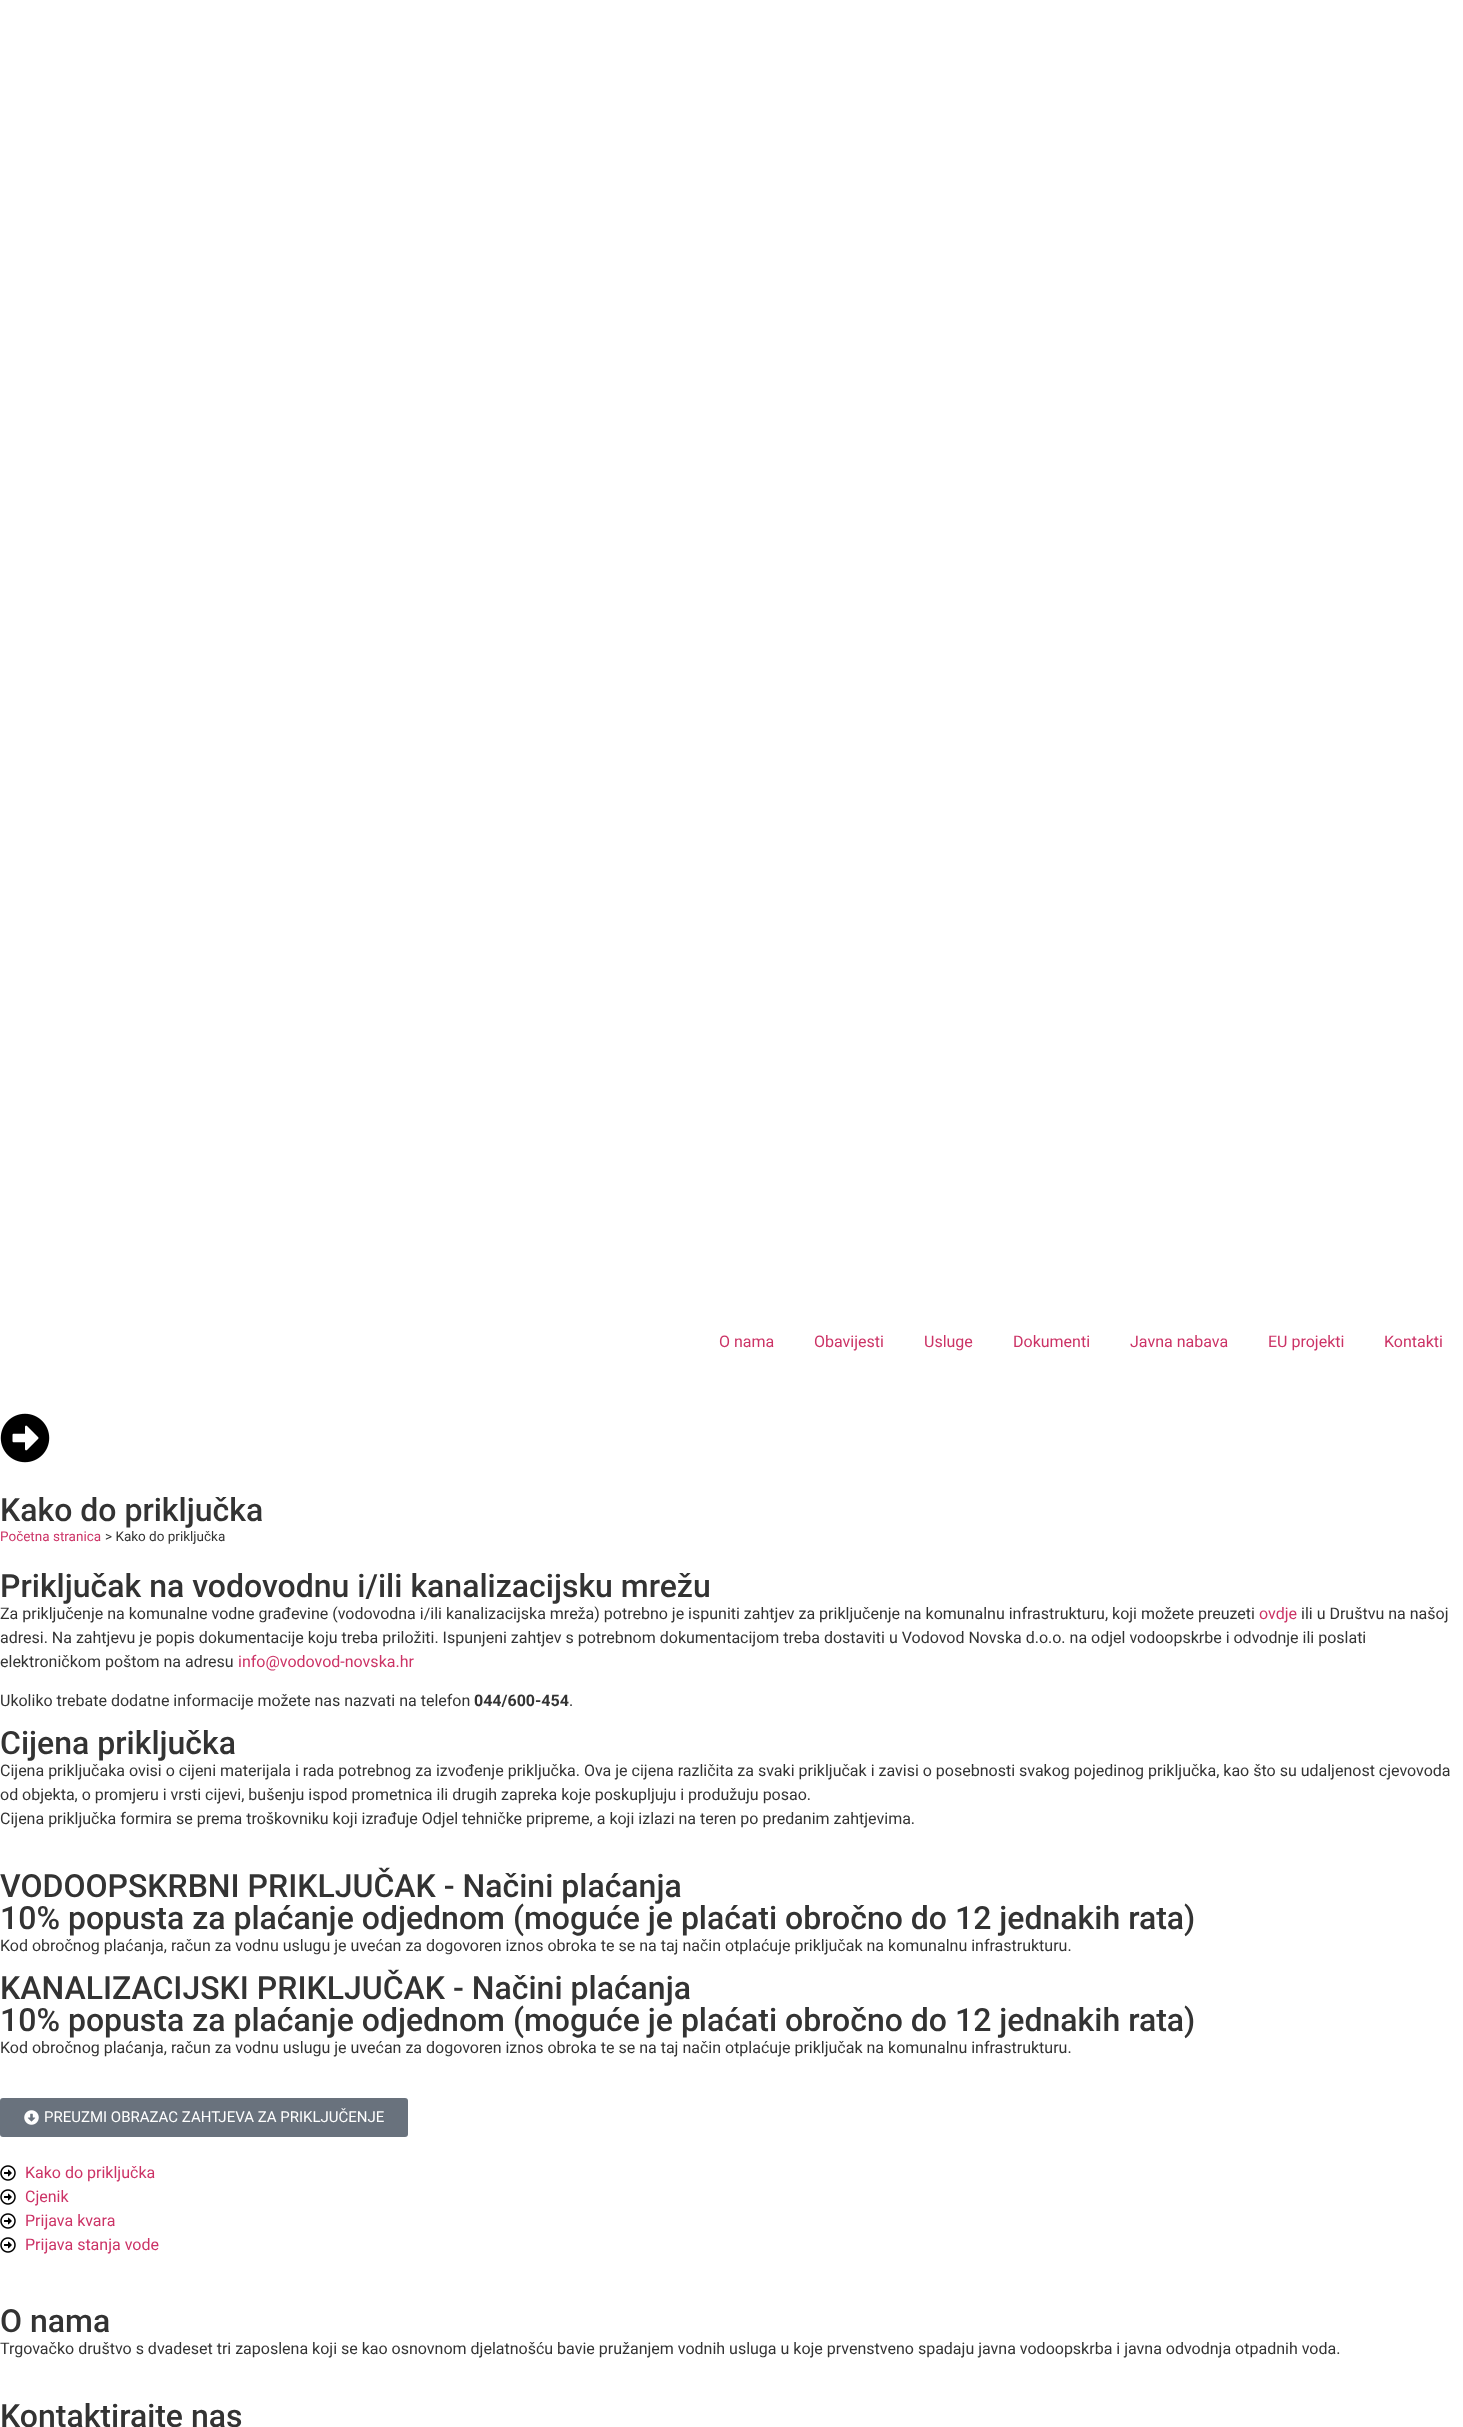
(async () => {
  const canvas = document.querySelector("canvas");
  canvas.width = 1463;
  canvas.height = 2427;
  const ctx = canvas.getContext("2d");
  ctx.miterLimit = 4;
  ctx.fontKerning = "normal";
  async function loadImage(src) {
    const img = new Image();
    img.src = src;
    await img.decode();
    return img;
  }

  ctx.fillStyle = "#ffffff";
  ctx.fillRect(0, 0, 1463, 2427);
  ctx.drawImage(await loadImage("img/1.png"), 0, 1413, 50, 50);
  ctx.fillStyle = "#69727d";
  ctx.beginPath();
  ctx.roundRect(0, 2098, 408, 39, 3);
  ctx.fill();
  ctx.drawImage(await loadImage("img/2.png"), 24, 2110, 15, 15);
  ctx.drawImage(await loadImage("img/3.png"), 0, 2165, 16, 16);
  ctx.drawImage(await loadImage("img/3.png"), 0, 2189, 16, 16);
  ctx.drawImage(await loadImage("img/3.png"), 0, 2213, 16, 16);
  ctx.drawImage(await loadImage("img/3.png"), 0, 2237, 16, 16);
  ctx.font = "16px Roboto";
  ctx.fillStyle = "#cc3366";
  for (const [text, x, y] of [
    ["O nama", 719, 1347],
    ["Obavijesti", 814, 1347],
    ["Usluge", 924, 1347],
    ["Dokumenti", 1013, 1347],
    ["Javna nabava", 1130, 1347],
    ["EU projekti", 1268, 1347],
    ["Kontakti", 1384, 1347],
  ]) {
    ctx.fillText(text, x, y);
  }
  ctx.font = "500 32px Roboto";
  ctx.fillStyle = "#333333";
  ctx.fillText("Kako do priključka", 0, 1521);
  ctx.font = "13.5px Roboto";
  ctx.fillStyle = "#cc3366";
  ctx.fillText("Početna stranica", 0, 1541);
  ctx.fillStyle = "#333333";
  ctx.fillText("> Kako do priključka", 105, 1541);
  ctx.font = "500 32px Roboto";
  ctx.fillText("Priključak na vodovodnu i/ili kanalizacijsku mrežu", 0, 1597);
  ctx.font = "16px Roboto";
  ctx.fillText("Za priključenje na komunalne vodne građevine (vodovodna i/ili kanalizacijska mreža) potrebno je ispuniti zahtjev za priključenje na komunalnu infrastrukturu, koji možete preuzeti", 0, 1619);
  ctx.fillStyle = "#cc3366";
  ctx.fillText("ovdje", 1259, 1619);
  ctx.fillStyle = "#333333";
  for (const [text, x, y] of [
    ["ili u Društvu na našoj", 1301, 1619],
    ["adresi. Na zahtjevu je popis dokumentacije koju treba priložiti. Ispunjeni zahtjev s potrebnom dokumentacijom treba dostaviti u Vodovod Novska d.o.o. na odjel vodoopskrbe i odvodnje ili poslati", 0, 1643],
    ["elektroničkom poštom na adresu", 0, 1667],
  ]) {
    ctx.fillText(text, x, y);
  }
  ctx.fillStyle = "#cc3366";
  ctx.fillText("info@vodovod-novska.hr", 238, 1667);
  ctx.fillStyle = "#333333";
  ctx.fillText("Ukoliko trebate dodatne informacije možete nas nazvati na telefon", 0, 1706);
  ctx.font = "bold 16px Roboto";
  ctx.fillText("044/600-454", 474, 1706);
  ctx.font = "16px Roboto";
  ctx.fillText(".", 569, 1706);
  ctx.font = "500 32px Roboto";
  ctx.fillText("Cijena priključka", 0, 1754);
  ctx.font = "16px Roboto";
  for (const [text, x, y] of [
    ["Cijena priključaka ovisi o cijeni materijala i rada potrebnog za izvođenje priključka. Ova je cijena različita za svaki priključak i zavisi o posebnosti svakog pojedinog priključka, kao što su udaljenost cjevovoda", 0, 1776],
    ["od objekta, o promjeru i vrsti cijevi, bušenju ispod prometnica ili drugih zapreka koje poskupljuju i produžuju posao.", 0, 1800],
    ["Cijena priključka formira se prema troškovniku koji izrađuje Odjel tehničke pripreme, a koji izlazi na teren po predanim zahtjevima.", 0, 1824],
  ]) {
    ctx.fillText(text, x, y);
  }
  ctx.font = "500 32px Roboto";
  ctx.fillText("VODOOPSKRBNI PRIKLJUČAK - Načini plaćanja", 0, 1897);
  ctx.fillText("10% popusta za plaćanje odjednom (moguće je plaćati obročno do 12 jednakih rata)", 0, 1929);
  ctx.font = "16px Roboto";
  ctx.fillText("Kod obročnog plaćanja, račun za vodnu uslugu je uvećan za dogovoren iznos obroka te se na taj način otplaćuje priključak na komunalnu infrastrukturu.", 0, 1951);
  ctx.font = "500 32px Roboto";
  ctx.fillText("KANALIZACIJSKI PRIKLJUČAK - Načini plaćanja", 0, 1999);
  ctx.fillText("10% popusta za plaćanje odjednom (moguće je plaćati obročno do 12 jednakih rata)", 0, 2031);
  ctx.font = "16px Roboto";
  ctx.fillText("Kod obročnog plaćanja, račun za vodnu uslugu je uvećan za dogovoren iznos obroka te se na taj način otplaćuje priključak na komunalnu infrastrukturu.", 0, 2053);
  ctx.font = "15px Roboto";
  ctx.fillStyle = "#ffffff";
  ctx.fillText("PREUZMI OBRAZAC ZAHTJEVA ZA PRIKLJUČENJE", 44, 2122);
  ctx.font = "16px Roboto";
  ctx.fillStyle = "#cc3366";
  for (const [text, x, y] of [
    ["Kako do priključka", 25, 2178],
    ["Cjenik", 25, 2202],
    ["Prijava kvara", 25, 2226],
    ["Prijava stanja vode", 25, 2250],
  ]) {
    ctx.fillText(text, x, y);
  }
  ctx.font = "500 32px Roboto";
  ctx.fillStyle = "#333333";
  ctx.fillText("O nama", 0, 2332);
  ctx.font = "16px Roboto";
  ctx.fillText("Trgovačko društvo s dvadeset tri zaposlena koji se kao osnovnom djelatnošću bavie pružanjem vodnih usluga u koje prvenstveno spadaju javna vodoopskrba i javna odvodnja otpadnih voda.", 0, 2354);
  ctx.font = "500 32px Roboto";
  ctx.fillText("Kontaktirajte nas", 0, 2427);
})();
